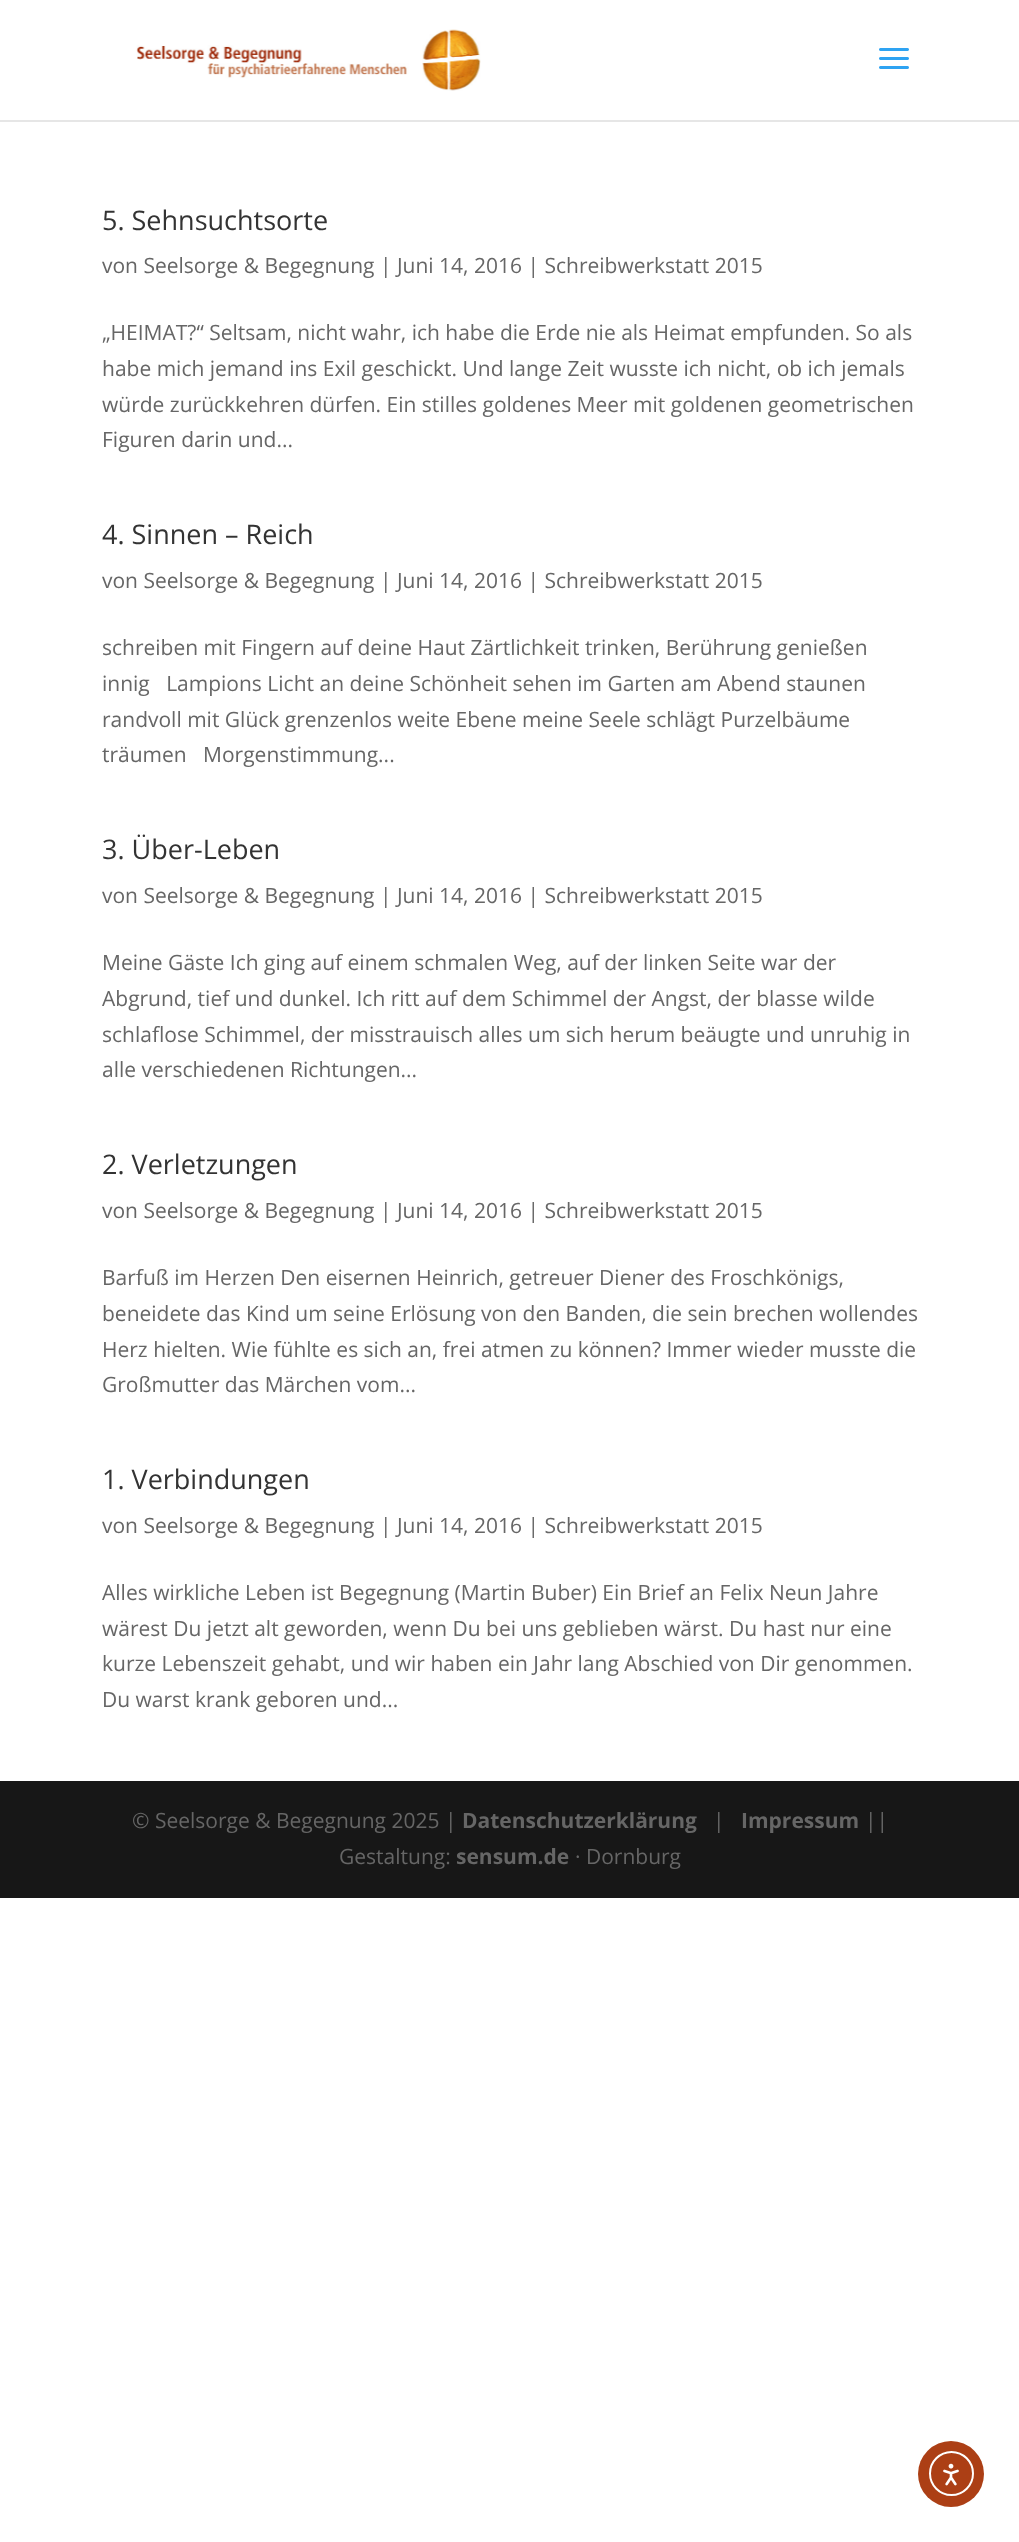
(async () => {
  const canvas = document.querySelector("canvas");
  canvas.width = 1019;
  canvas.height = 2542;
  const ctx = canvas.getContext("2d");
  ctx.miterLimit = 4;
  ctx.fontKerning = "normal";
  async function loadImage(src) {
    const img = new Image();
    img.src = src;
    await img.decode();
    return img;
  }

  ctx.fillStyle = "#ffffff";
  ctx.fillRect(0, 0, 1019, 2542);
  ctx.fillStyle = "#e6e6e6";
  ctx.fillRect(0, 120, 1019, 2);
  ctx.drawImage(await loadImage("img/1.png"), 136, 29, 345, 62);
  ctx.drawImage(await loadImage("img/2.png"), 879, 48, 30, 21);
  ctx.fillStyle = "#171717";
  ctx.fillRect(0, 1781, 1019, 117);
  ctx.fillStyle = "#ac3f15";
  ctx.beginPath();
  ctx.arc(951, 2474, 33, 0, Math.PI * 2);
  ctx.fill();
  ctx.beginPath();
  ctx.arc(951.5, 2473.5, 21.5, 0, Math.PI * 2);
  ctx.strokeStyle = "#ffffff";
  ctx.lineWidth = 2;
  ctx.stroke();
  ctx.drawImage(await loadImage("img/3.png"), 943, 2463, 16, 23);
  ctx.font = "27px Open Sans";
  ctx.fillStyle = "#333333";
  ctx.fillText("5. Sehnsuchtsorte", 102, 230);
  ctx.font = "21px Open Sans";
  ctx.fillStyle = "#666666";
  for (const [text, x, y] of [
    ["von Seelsorge & Begegnung | Juni 14, 2016 | Schreibwerkstatt 2015", 102, 273],
    ["„HEIMAT?“ Seltsam, nicht wahr, ich habe die Erde nie als Heimat empfunden. So als", 102, 340],
    ["habe mich jemand ins Exil geschickt. Und lange Zeit wusste ich nicht, ob ich jemals", 102, 376],
    ["würde zurückkehren dürfen. Ein stilles goldenes Meer mit goldenen geometrischen", 102, 412],
    ["Figuren darin und...", 102, 447],
  ]) {
    ctx.fillText(text, x, y);
  }
  ctx.font = "27px Open Sans";
  ctx.fillStyle = "#333333";
  ctx.fillText("4. Sinnen – Reich", 102, 544);
  ctx.font = "21px Open Sans";
  ctx.fillStyle = "#666666";
  for (const [text, x, y] of [
    ["von Seelsorge & Begegnung | Juni 14, 2016 | Schreibwerkstatt 2015", 102, 588],
    ["schreiben mit Fingern auf deine Haut Zärtlichkeit trinken, Berührung genießen", 102, 655],
    ["innig   Lampions Licht an deine Schönheit sehen im Garten am Abend staunen", 102, 691],
    ["randvoll mit Glück grenzenlos weite Ebene meine Seele schlägt Purzelbäume", 102, 727],
    ["träumen   Morgenstimmung...", 102, 762],
  ]) {
    ctx.fillText(text, x, y);
  }
  ctx.font = "27px Open Sans";
  ctx.fillStyle = "#333333";
  ctx.fillText("3. Über-Leben", 102, 859);
  ctx.font = "21px Open Sans";
  ctx.fillStyle = "#666666";
  for (const [text, x, y] of [
    ["von Seelsorge & Begegnung | Juni 14, 2016 | Schreibwerkstatt 2015", 102, 903],
    ["Meine Gäste Ich ging auf einem schmalen Weg, auf der linken Seite war der", 102, 970],
    ["Abgrund, tief und dunkel. Ich ritt auf dem Schimmel der Angst, der blasse wilde", 102, 1006],
    ["schlaflose Schimmel, der misstrauisch alles um sich herum beäugte und unruhig in", 102, 1042],
    ["alle verschiedenen Richtungen...", 102, 1077],
  ]) {
    ctx.fillText(text, x, y);
  }
  ctx.font = "27px Open Sans";
  ctx.fillStyle = "#333333";
  ctx.fillText("2. Verletzungen", 102, 1174);
  ctx.font = "21px Open Sans";
  ctx.fillStyle = "#666666";
  for (const [text, x, y] of [
    ["von Seelsorge & Begegnung | Juni 14, 2016 | Schreibwerkstatt 2015", 102, 1218],
    ["Barfuß im Herzen Den eisernen Heinrich, getreuer Diener des Froschkönigs,", 102, 1285],
    ["beneidete das Kind um seine Erlösung von den Banden, die sein brechen wollendes", 102, 1321],
    ["Herz hielten. Wie fühlte es sich an, frei atmen zu können? Immer wieder musste die", 102, 1357],
    ["Großmutter das Märchen vom...", 102, 1392],
  ]) {
    ctx.fillText(text, x, y);
  }
  ctx.font = "27px Open Sans";
  ctx.fillStyle = "#333333";
  ctx.fillText("1. Verbindungen", 102, 1489);
  ctx.font = "21px Open Sans";
  ctx.fillStyle = "#666666";
  for (const [text, x, y] of [
    ["von Seelsorge & Begegnung | Juni 14, 2016 | Schreibwerkstatt 2015", 102, 1533],
    ["Alles wirkliche Leben ist Begegnung (Martin Buber) Ein Brief an Felix Neun Jahre", 102, 1600],
    ["wärest Du jetzt alt geworden, wenn Du bei uns geblieben wärst. Du hast nur eine", 102, 1636],
    ["kurze Lebenszeit gehabt, und wir haben ein Jahr lang Abschied von Dir genommen.", 102, 1671],
    ["Du warst krank geboren und...", 102, 1707],
    ["© Seelsorge & Begegnung 2025 |", 132, 1828],
  ]) {
    ctx.fillText(text, x, y);
  }
  ctx.font = "bold 21px Open Sans";
  ctx.fillText("Datenschutzerklärung", 462, 1828);
  ctx.font = "21px Open Sans";
  ctx.fillText("|", 713, 1828);
  ctx.font = "bold 21px Open Sans";
  ctx.fillText("Impressum", 741, 1828);
  ctx.font = "21px Open Sans";
  ctx.fillText("||", 865, 1828);
  ctx.fillText("Gestaltung:", 339, 1864);
  ctx.font = "bold 21px Open Sans";
  ctx.fillText("sensum.de", 456, 1864);
  ctx.font = "21px Open Sans";
  ctx.fillText("· Dornburg", 575, 1864);
})();
